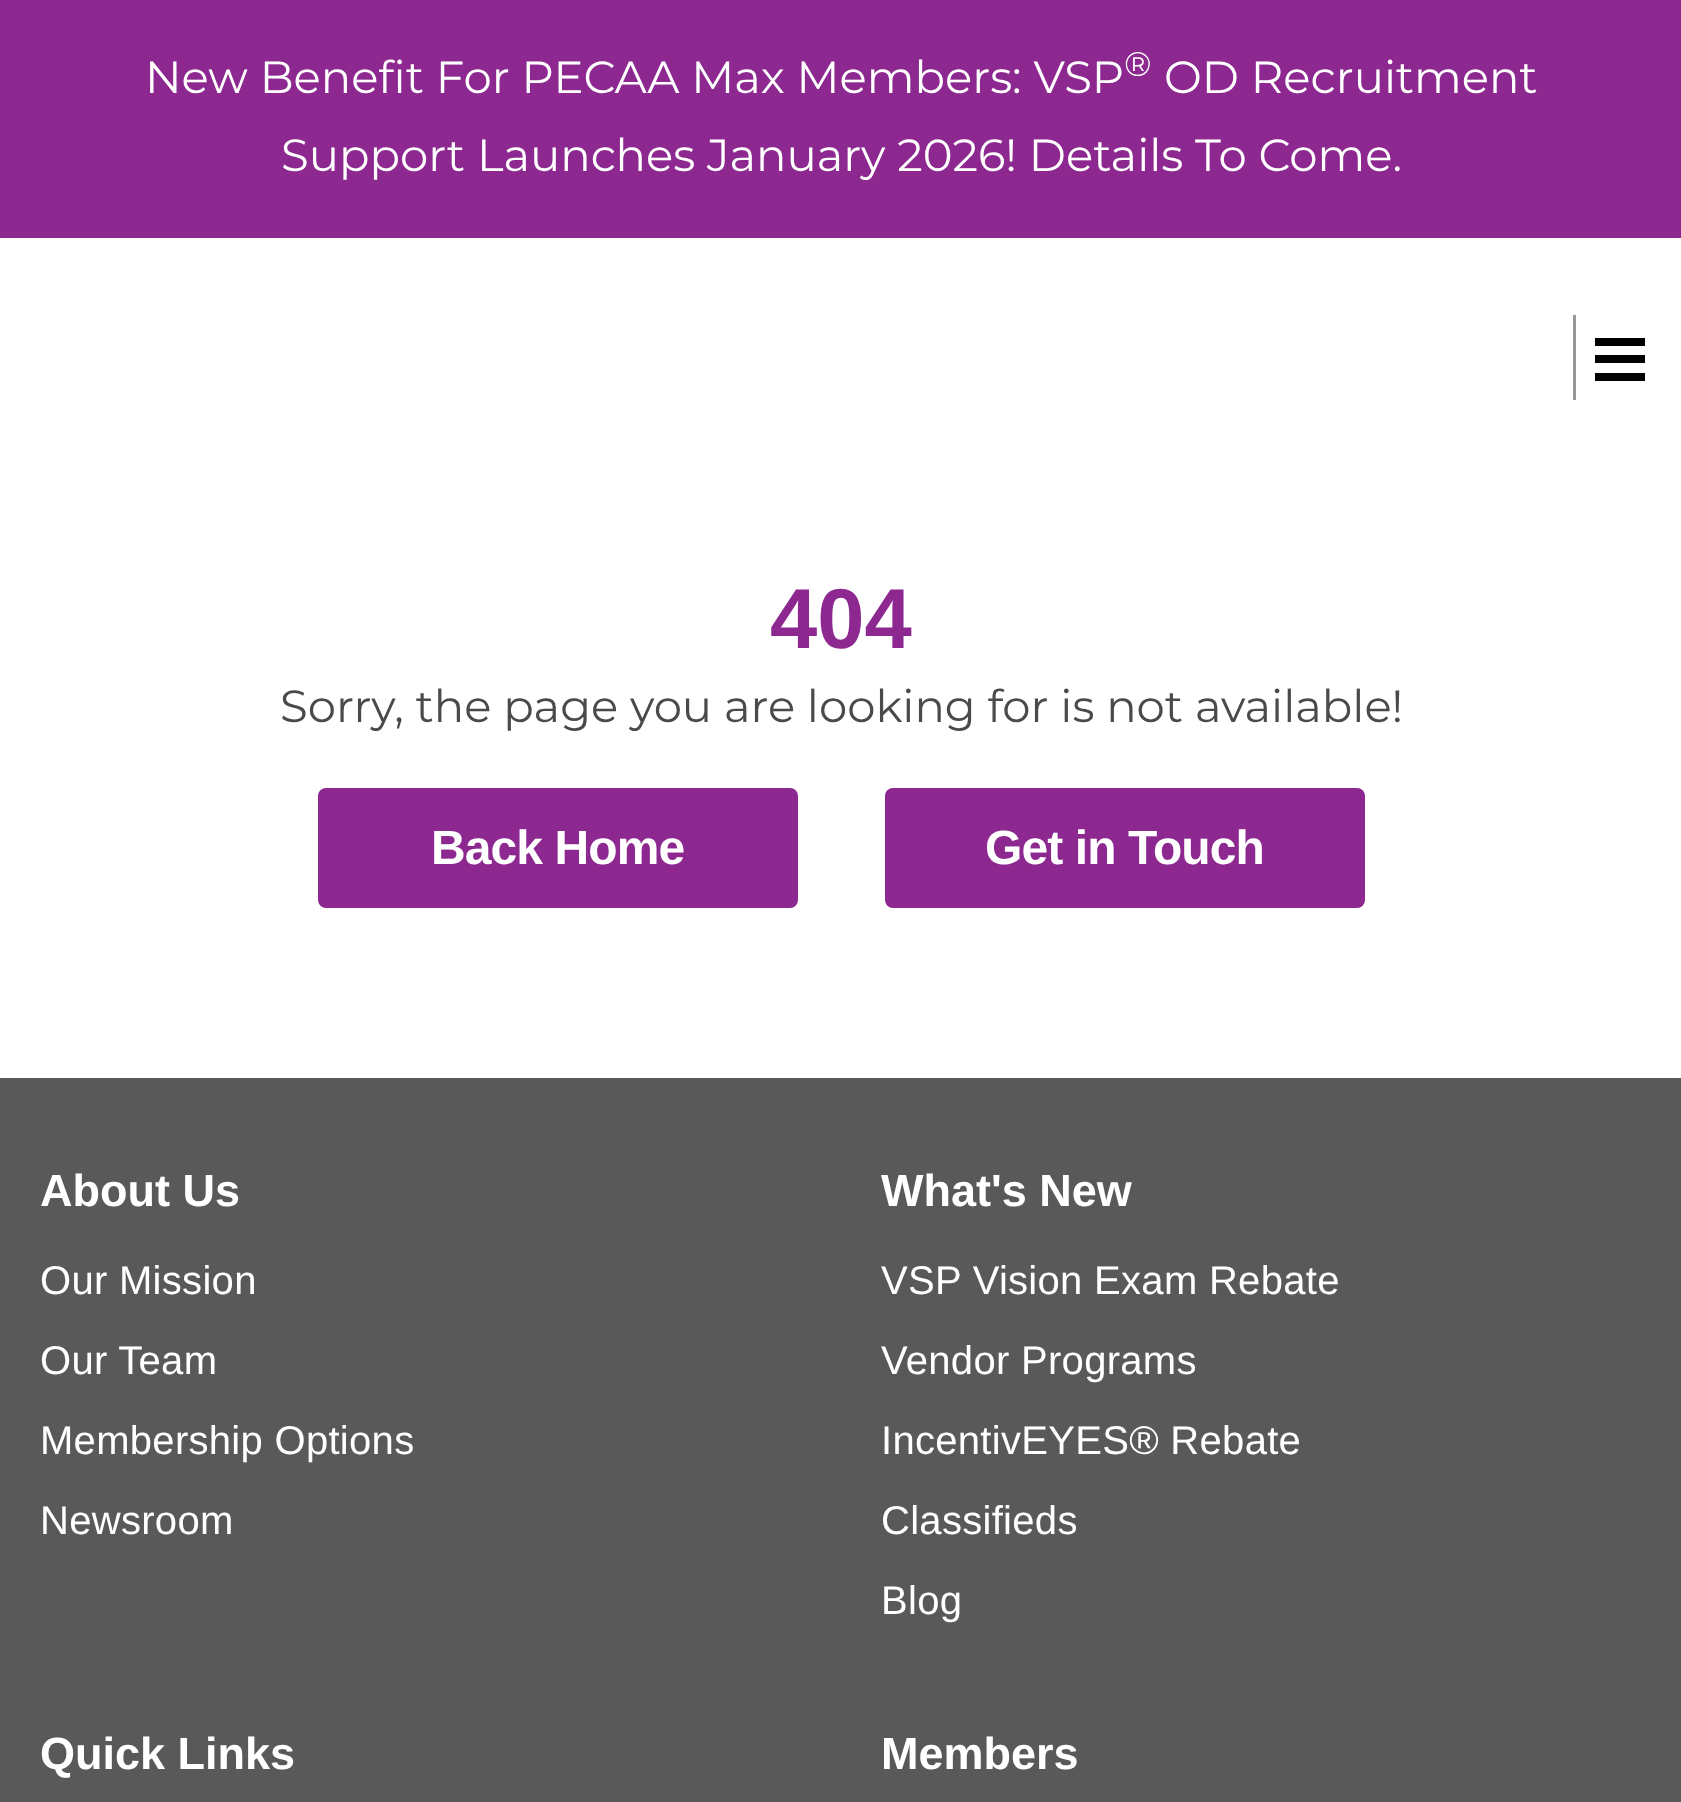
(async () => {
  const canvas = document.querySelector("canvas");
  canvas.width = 1681;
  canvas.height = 1802;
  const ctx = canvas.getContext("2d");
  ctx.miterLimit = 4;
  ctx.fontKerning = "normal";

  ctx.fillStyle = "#ffffff";
  ctx.fillRect(0, 0, 1681, 1802);
  for (const [x, y, w, h, color] of [
    [0, 0, 1681, 238, "#8c2890"],
    [1573, 315, 3, 85, "#979797"],
    [1595, 373, 50, 8, "#000000"],
    [1595, 355, 50, 8, "#000000"],
    [1595, 338, 50, 8, "#000000"],
  ]) {
    ctx.fillStyle = color;
    ctx.fillRect(x, y, w, h);
  }
  ctx.fillStyle = "#8c2890";
  ctx.beginPath();
  ctx.roundRect(318, 788, 480, 120, 8);
  ctx.fill();
  ctx.beginPath();
  ctx.roundRect(885, 788, 480, 120, 8);
  ctx.fill();
  ctx.fillStyle = "#595959";
  ctx.fillRect(0, 1078, 1681, 724);
  ctx.font = "45px Montserrat";
  ctx.fillStyle = "#ffffff";
  ctx.fillText("New Benefit For PECAA Max Members: VSP", 145, 93);
  ctx.font = "34px Montserrat";
  ctx.fillText("®", 1124, 76);
  ctx.font = "45px Montserrat";
  ctx.fillText("OD Recruitment", 1164, 93);
  ctx.fillText("Support Launches January 2026! Details To Come.", 281, 171);
  ctx.font = "bold 85px Liberation Sans";
  ctx.fillStyle = "#8c2890";
  ctx.fillText("404", 770, 648);
  ctx.font = "45px Montserrat";
  ctx.fillStyle = "#4a4a4a";
  ctx.fillText("Sorry, the page you are looking for is not available!", 280, 722);
  ctx.letterSpacing = "-0.9px";
  ctx.font = "bold 48px Liberation Sans";
  ctx.fillStyle = "#ffffff";
  ctx.fillText("Back Home", 431, 864);
  ctx.fillText("Get in Touch", 985, 864);
  ctx.letterSpacing = "0px";
  ctx.font = "bold 45px Liberation Sans";
  ctx.fillText("About Us", 40, 1206);
  ctx.letterSpacing = "0.3px";
  ctx.font = "40px Liberation Sans";
  for (const [text, x, y] of [
    ["Our Mission", 40, 1294],
    ["Our Team", 40, 1374],
    ["Membership Options", 40, 1454],
    ["Newsroom", 40, 1534],
  ]) {
    ctx.fillText(text, x, y);
  }
  ctx.letterSpacing = "0px";
  ctx.font = "bold 45px Liberation Sans";
  ctx.fillText("What's New", 881, 1206);
  ctx.letterSpacing = "0.3px";
  ctx.font = "40px Liberation Sans";
  for (const [text, x, y] of [
    ["VSP Vision Exam Rebate", 881, 1294],
    ["Vendor Programs", 881, 1374],
    ["IncentivEYES® Rebate", 881, 1454],
    ["Classifieds", 881, 1534],
    ["Blog", 881, 1614],
  ]) {
    ctx.fillText(text, x, y);
  }
  ctx.letterSpacing = "0px";
  ctx.font = "bold 45px Liberation Sans";
  ctx.fillText("Quick Links", 40, 1769);
  ctx.fillText("Members", 881, 1769);
})();
